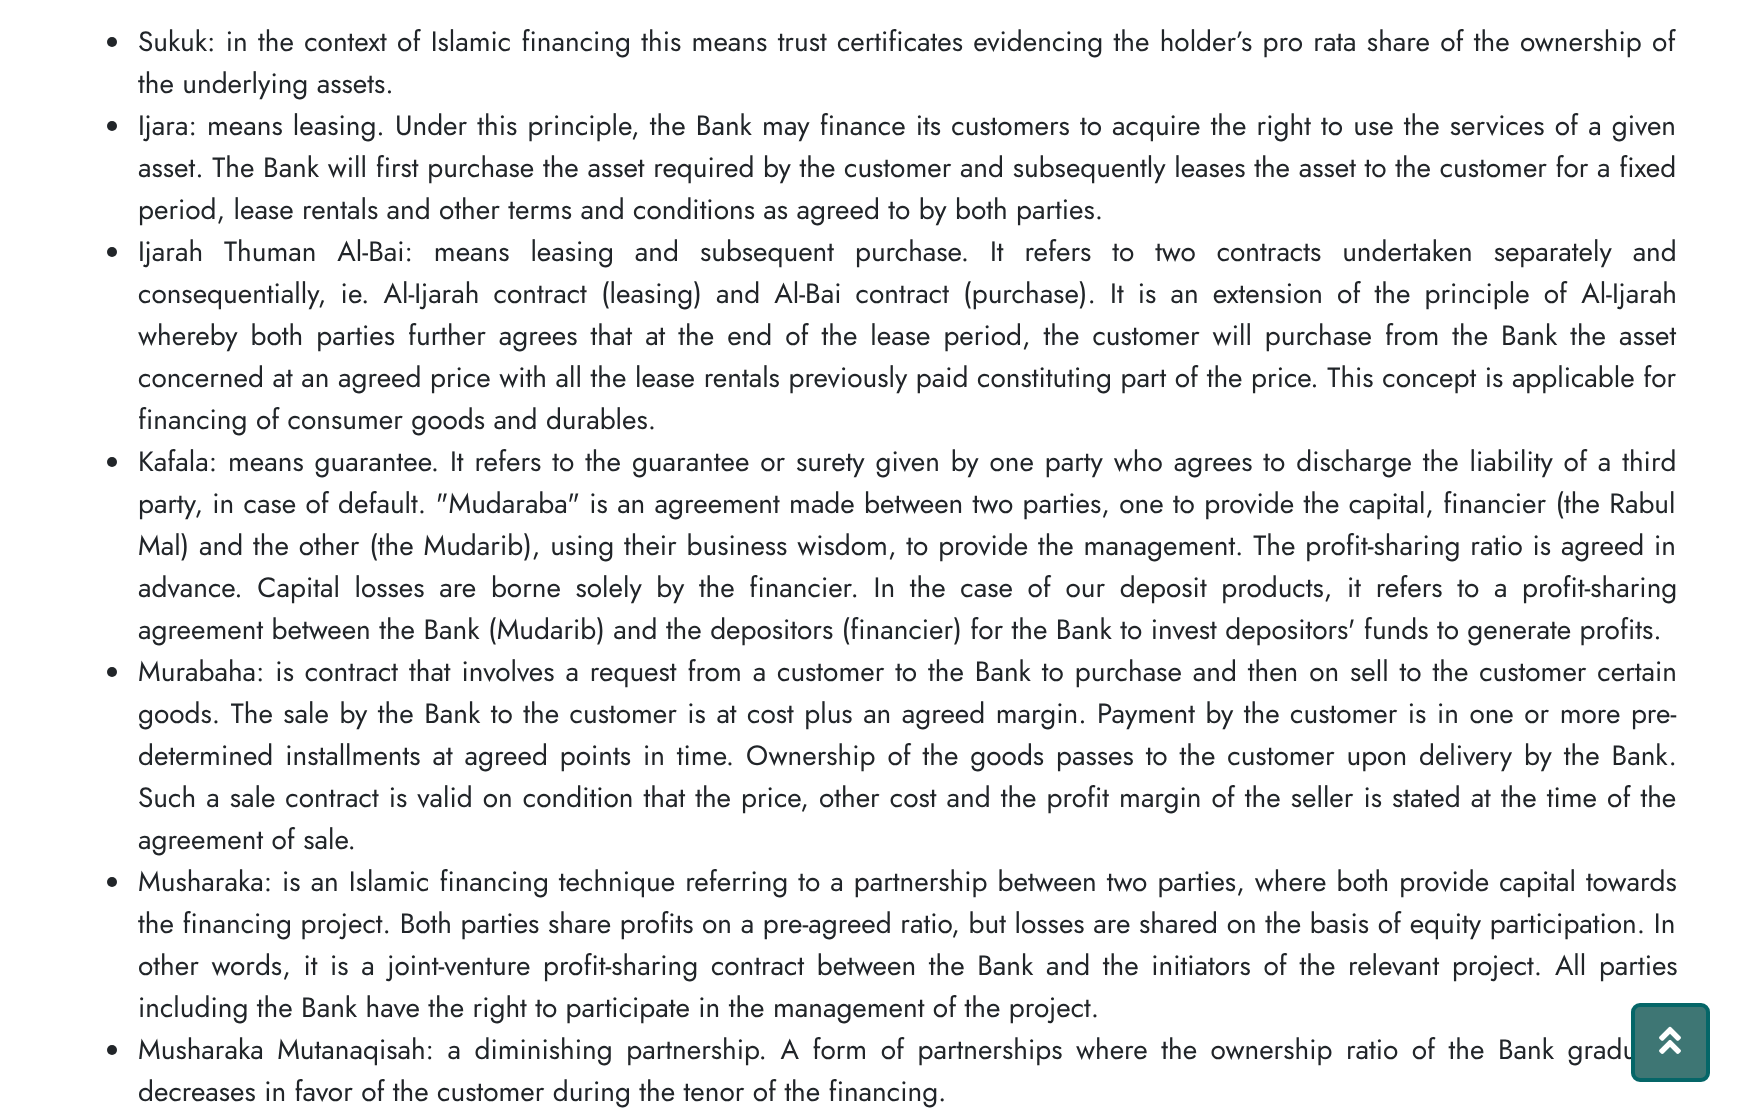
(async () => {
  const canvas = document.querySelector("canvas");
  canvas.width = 1744;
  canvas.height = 1116;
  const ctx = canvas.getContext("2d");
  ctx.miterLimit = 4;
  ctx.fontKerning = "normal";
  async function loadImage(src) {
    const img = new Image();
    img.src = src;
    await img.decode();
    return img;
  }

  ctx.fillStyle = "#ffffff";
  ctx.fillRect(0, 0, 1744, 1116);
  ctx.fillStyle = "#212529";
  ctx.beginPath();
  ctx.arc(112, 42, 5, 0, Math.PI * 2);
  ctx.fill();
  ctx.beginPath();
  ctx.arc(112, 126, 5, 0, Math.PI * 2);
  ctx.fill();
  ctx.beginPath();
  ctx.arc(112, 252, 5, 0, Math.PI * 2);
  ctx.fill();
  ctx.beginPath();
  ctx.arc(112, 462, 5, 0, Math.PI * 2);
  ctx.fill();
  ctx.beginPath();
  ctx.arc(112, 672, 5, 0, Math.PI * 2);
  ctx.fill();
  ctx.beginPath();
  ctx.arc(112, 882, 5, 0, Math.PI * 2);
  ctx.fill();
  ctx.beginPath();
  ctx.arc(112, 1050, 5, 0, Math.PI * 2);
  ctx.fill();
  ctx.wordSpacing = "1.9px";
  ctx.font = "28px Jost";
  ctx.fillText("Sukuk: in the context of Islamic financing this means trust certificates evidencing the holder’s pro rata share of the ownership of", 138, 51);
  ctx.wordSpacing = "0px";
  ctx.fillText("the underlying assets.", 138, 93);
  ctx.wordSpacing = "1.75px";
  ctx.fillText("Ijara: means leasing. Under this principle, the Bank may finance its customers to acquire the right to use the services of a given", 138, 135);
  ctx.wordSpacing = "0.25px";
  ctx.fillText("asset. The Bank will first purchase the asset required by the customer and subsequently leases the asset to the customer for a fixed", 138, 177);
  ctx.wordSpacing = "0px";
  ctx.fillText("period, lease rentals and other terms and conditions as agreed to by both parties.", 138, 219);
  ctx.wordSpacing = "12.5px";
  ctx.fillText("Ijarah Thuman Al-Bai: means leasing and subsequent purchase. It refers to two contracts undertaken separately and", 138, 261);
  ctx.wordSpacing = "5.75px";
  ctx.fillText("consequentially, ie. Al-Ijarah contract (leasing) and Al-Bai contract (purchase). It is an extension of the principle of Al-Ijarah", 138, 303);
  ctx.wordSpacing = "4.6px";
  ctx.fillText("whereby both parties further agrees that at the end of the lease period, the customer will purchase from the Bank the asset", 138, 345);
  ctx.wordSpacing = "0.2px";
  ctx.fillText("concerned at an agreed price with all the lease rentals previously paid constituting part of the price. This concept is applicable for", 138, 387);
  ctx.wordSpacing = "0px";
  ctx.fillText("financing of consumer goods and durables.", 138, 429);
  ctx.wordSpacing = "2.5px";
  ctx.fillText("Kafala: means guarantee. It refers to the guarantee or surety given by one party who agrees to discharge the liability of a third", 138, 471);
  ctx.wordSpacing = "0.9px";
  ctx.fillText("party, in case of default. \"Mudaraba\" is an agreement made between two parties, one to provide the capital, financier (the Rabul", 138, 513);
  ctx.wordSpacing = "1.4px";
  ctx.fillText("Mal) and the other (the Mudarib), using their business wisdom, to provide the management. The profit-sharing ratio is agreed in", 138, 555);
  ctx.wordSpacing = "6.25px";
  ctx.fillText("advance. Capital losses are borne solely by the financier. In the case of our deposit products, it refers to a profit-sharing", 138, 597);
  ctx.wordSpacing = "0px";
  ctx.fillText("agreement between the Bank (Mudarib) and the depositors (financier) for the Bank to invest depositors' funds to generate profits.", 138, 639);
  ctx.wordSpacing = "2.5px";
  ctx.fillText("Murabaha: is contract that involves a request from a customer to the Bank to purchase and then on sell to the customer certain", 138, 681);
  ctx.wordSpacing = "2.1px";
  ctx.fillText("goods. The sale by the Bank to the customer is at cost plus an agreed margin. Payment by the customer is in one or more pre-", 138, 723);
  ctx.wordSpacing = "3.5px";
  ctx.fillText("determined installments at agreed points in time. Ownership of the goods passes to the customer upon delivery by the Bank.", 138, 765);
  ctx.wordSpacing = "1.65px";
  ctx.fillText("Such a sale contract is valid on condition that the price, other cost and the profit margin of the seller is stated at the time of the", 138, 807);
  ctx.wordSpacing = "0px";
  ctx.fillText("agreement of sale.", 138, 849);
  ctx.wordSpacing = "1.6px";
  ctx.fillText("Musharaka: is an Islamic financing technique referring to a partnership between two parties, where both provide capital towards", 138, 891);
  ctx.wordSpacing = "0.25px";
  ctx.fillText("the financing project. Both parties share profits on a pre-agreed ratio, but losses are shared on the basis of equity participation. In", 138, 933);
  ctx.wordSpacing = "4.25px";
  ctx.fillText("other words, it is a joint-venture profit-sharing contract between the Bank and the initiators of the relevant project. All parties", 138, 975);
  ctx.wordSpacing = "0px";
  ctx.fillText("including the Bank have the right to participate in the management of the project.", 138, 1017);
  ctx.wordSpacing = "5.1px";
  ctx.fillText("Musharaka Mutanaqisah: a diminishing partnership. A form of partnerships where the ownership ratio of the Bank gradu", 138, 1059);
  ctx.wordSpacing = "0px";
  ctx.fillText("decreases in favor of the customer during the tenor of the financing.", 138, 1101);
  ctx.fillStyle = "#3e7674";
  ctx.beginPath();
  ctx.roundRect(1633, 1005, 75, 75, 7);
  ctx.fill();
  ctx.strokeStyle = "#056668";
  ctx.lineWidth = 4;
  ctx.stroke();
  ctx.drawImage(await loadImage("img/1.png"), 1659, 1026, 22, 28);
})();
